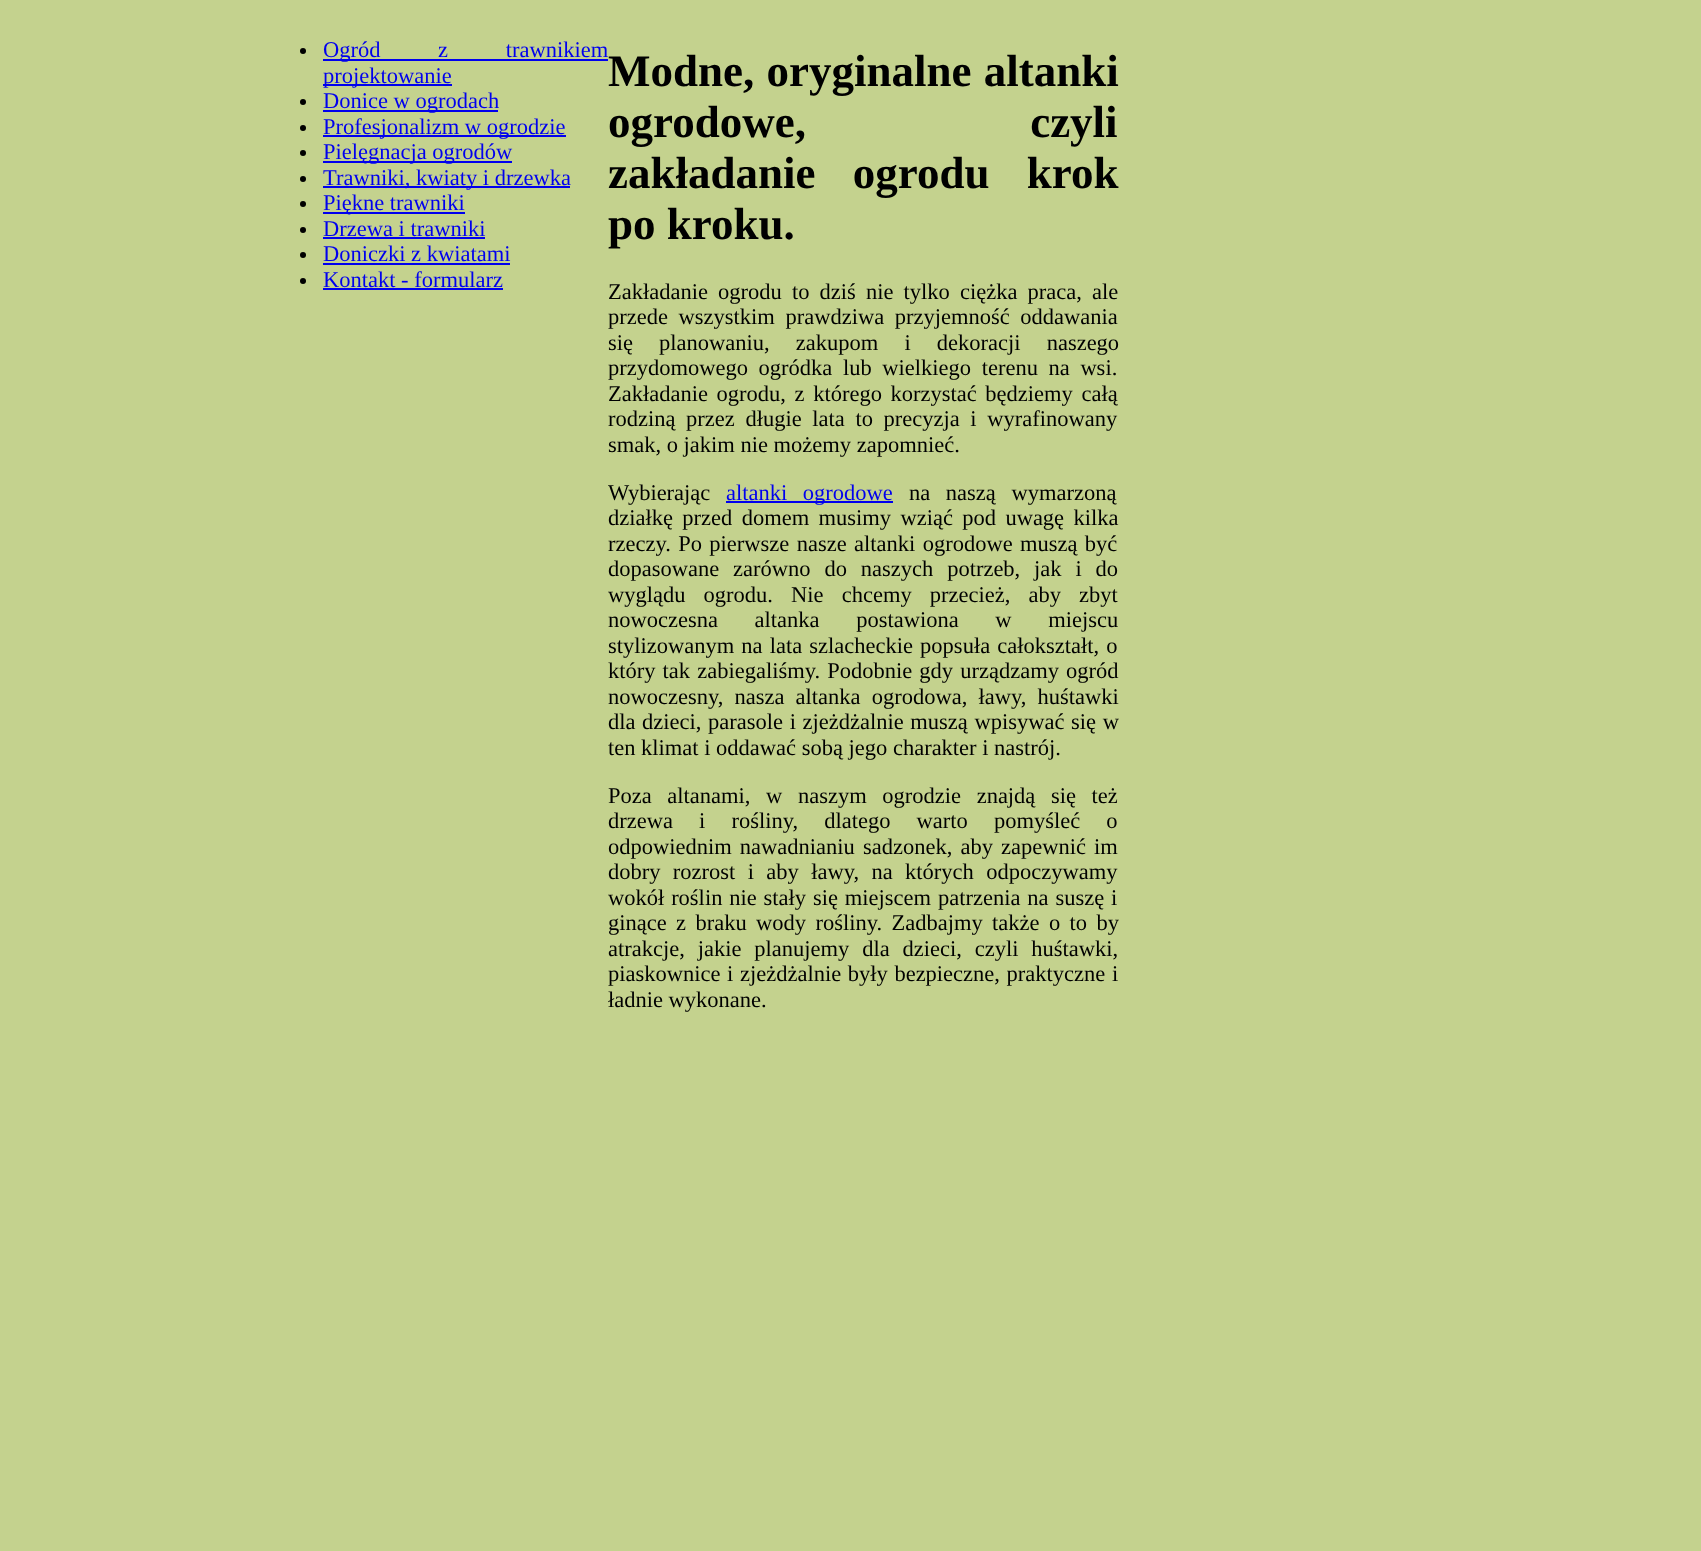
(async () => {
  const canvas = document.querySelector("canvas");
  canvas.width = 1701;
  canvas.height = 1551;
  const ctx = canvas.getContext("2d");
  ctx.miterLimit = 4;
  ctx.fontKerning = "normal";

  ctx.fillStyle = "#c4d28e";
  ctx.fillRect(0, 0, 1701, 1551);
  ctx.fillStyle = "#000000";
  ctx.beginPath();
  ctx.arc(303, 51, 3, 0, Math.PI * 2);
  ctx.fill();
  ctx.fillStyle = "#0000ee";
  ctx.fillRect(323, 59, 285, 2);
  ctx.fillRect(323, 84, 129, 2);
  ctx.fillStyle = "#000000";
  ctx.beginPath();
  ctx.arc(303, 102, 3, 0, Math.PI * 2);
  ctx.fill();
  ctx.fillStyle = "#0000ee";
  ctx.fillRect(323, 110, 175, 2);
  ctx.fillStyle = "#000000";
  ctx.beginPath();
  ctx.arc(303, 128, 3, 0, Math.PI * 2);
  ctx.fill();
  ctx.fillStyle = "#0000ee";
  ctx.fillRect(323, 135, 243, 2);
  ctx.fillStyle = "#000000";
  ctx.beginPath();
  ctx.arc(303, 153, 3, 0, Math.PI * 2);
  ctx.fill();
  ctx.fillStyle = "#0000ee";
  ctx.fillRect(323, 161, 189, 2);
  ctx.fillStyle = "#000000";
  ctx.beginPath();
  ctx.arc(303, 179, 3, 0, Math.PI * 2);
  ctx.fill();
  ctx.fillStyle = "#0000ee";
  ctx.fillRect(323, 186, 247, 2);
  ctx.fillStyle = "#000000";
  ctx.beginPath();
  ctx.arc(303, 204, 3, 0, Math.PI * 2);
  ctx.fill();
  ctx.fillStyle = "#0000ee";
  ctx.fillRect(323, 212, 142, 2);
  ctx.fillStyle = "#000000";
  ctx.beginPath();
  ctx.arc(303, 230, 3, 0, Math.PI * 2);
  ctx.fill();
  ctx.fillStyle = "#0000ee";
  ctx.fillRect(323, 237, 162, 2);
  ctx.fillStyle = "#000000";
  ctx.beginPath();
  ctx.arc(303, 255, 3, 0, Math.PI * 2);
  ctx.fill();
  ctx.fillStyle = "#0000ee";
  ctx.fillRect(323, 263, 187, 2);
  ctx.fillStyle = "#000000";
  ctx.beginPath();
  ctx.arc(303, 281, 3, 0, Math.PI * 2);
  ctx.fill();
  ctx.fillStyle = "#0000ee";
  ctx.fillRect(323, 288, 180, 2);
  ctx.fillRect(726, 501, 167, 2);
  ctx.wordSpacing = "52px";
  ctx.font = "22.5px Liberation Serif";
  ctx.fillText("Ogród z trawnikiem", 323, 57);
  ctx.wordSpacing = "0px";
  for (const [text, x, y] of [
    ["projektowanie", 323, 83],
    ["Donice w ogrodach", 323, 108],
    ["Profesjonalizm w ogrodzie", 323, 134],
    ["Pielęgnacja ogrodów", 323, 159],
    ["Trawniki, kwiaty i drzewka", 323, 185],
    ["Piękne trawniki", 323, 210],
    ["Drzewa i trawniki", 323, 236],
    ["Doniczki z kwiatami", 323, 261],
    ["Kontakt - formularz", 323, 287],
  ]) {
    ctx.fillText(text, x, y);
  }
  ctx.wordSpacing = "1px";
  ctx.font = "bold 45px Liberation Serif";
  ctx.fillStyle = "#000000";
  ctx.fillText("Modne, oryginalne altanki", 608, 86);
  ctx.wordSpacing = "213px";
  ctx.fillText("ogrodowe, czyli", 608, 137);
  ctx.wordSpacing = "26px";
  ctx.fillText("zakładanie ogrodu krok", 608, 188);
  ctx.wordSpacing = "0px";
  ctx.fillText("po kroku.", 608, 239);
  ctx.wordSpacing = "4.5px";
  ctx.font = "22.5px Liberation Serif";
  ctx.fillText("Zakładanie ogrodu to dziś nie tylko ciężka praca, ale", 608, 299);
  ctx.wordSpacing = "5px";
  ctx.fillText("przede wszystkim prawdziwa przyjemność oddawania", 608, 324);
  ctx.wordSpacing = "20.5px";
  ctx.fillText("się planowaniu, zakupom i dekoracji naszego", 608, 350);
  ctx.wordSpacing = "5px";
  ctx.fillText("przydomowego ogródka lub wielkiego terenu na wsi.", 608, 375);
  ctx.wordSpacing = "3px";
  ctx.fillText("Zakładanie ogrodu, z którego korzystać będziemy całą", 608, 401);
  ctx.wordSpacing = "5px";
  ctx.fillText("rodziną przez długie lata to precyzja i wyrafinowany", 608, 426);
  ctx.wordSpacing = "0px";
  ctx.fillText("smak, o jakim nie możemy zapomnieć.", 608, 452);
  ctx.fillText("Wybierając", 608, 500);
  ctx.wordSpacing = "10px";
  ctx.fillStyle = "#0000ee";
  ctx.fillText("altanki ogrodowe", 726, 500);
  ctx.fillStyle = "#000000";
  ctx.fillText("na naszą wymarzoną", 909, 500);
  ctx.wordSpacing = "3.75px";
  ctx.fillText("działkę przed domem musimy wziąć pod uwagę kilka", 608, 525);
  ctx.wordSpacing = "1.75px";
  ctx.fillText("rzeczy. Po pierwsze nasze altanki ogrodowe muszą być", 608, 551);
  ctx.wordSpacing = "8.25px";
  ctx.fillText("dopasowane zarówno do naszych potrzeb, jak i do", 608, 576);
  ctx.wordSpacing = "12.5px";
  ctx.fillText("wyglądu ogrodu. Nie chcemy przecież, aby zbyt", 608, 602);
  ctx.wordSpacing = "31px";
  ctx.fillText("nowoczesna altanka postawiona w miejscu", 608, 627);
  ctx.wordSpacing = "1.5px";
  ctx.fillText("stylizowanym na lata szlacheckie popsuła całokształt, o", 608, 653);
  ctx.fillText("który tak zabiegaliśmy. Podobnie gdy urządzamy ogród", 608, 678);
  ctx.wordSpacing = "5.5px";
  ctx.fillText("nowoczesny, nasza altanka ogrodowa, ławy, huśtawki", 608, 704);
  ctx.wordSpacing = "1px";
  ctx.fillText("dla dzieci, parasole i zjeżdżalnie muszą wpisywać się w", 608, 729);
  ctx.wordSpacing = "0px";
  ctx.fillText("ten klimat i oddawać sobą jego charakter i nastrój.", 608, 755);
  ctx.wordSpacing = "10px";
  ctx.fillText("Poza altanami, w naszym ogrodzie znajdą się też", 608, 803);
  ctx.wordSpacing = "20.5px";
  ctx.fillText("drzewa i rośliny, dlatego warto pomyśleć o", 608, 828);
  ctx.wordSpacing = "2.5px";
  ctx.fillText("odpowiednim nawadnianiu sadzonek, aby zapewnić im", 608, 854);
  ctx.wordSpacing = "6.75px";
  ctx.fillText("dobry rozrost i aby ławy, na których odpoczywamy", 608, 879);
  ctx.wordSpacing = "1.25px";
  ctx.fillText("wokół roślin nie stały się miejscem patrzenia na suszę i", 608, 905);
  ctx.wordSpacing = "3.75px";
  ctx.fillText("ginące z braku wody rośliny. Zadbajmy także o to by", 608, 930);
  ctx.wordSpacing = "7.25px";
  ctx.fillText("atrakcje, jakie planujemy dla dzieci, czyli huśtawki,", 608, 956);
  ctx.wordSpacing = "1px";
  ctx.fillText("piaskownice i zjeżdżalnie były bezpieczne, praktyczne i", 608, 981);
  ctx.wordSpacing = "0px";
  ctx.fillText("ładnie wykonane.", 608, 1007);
})();
